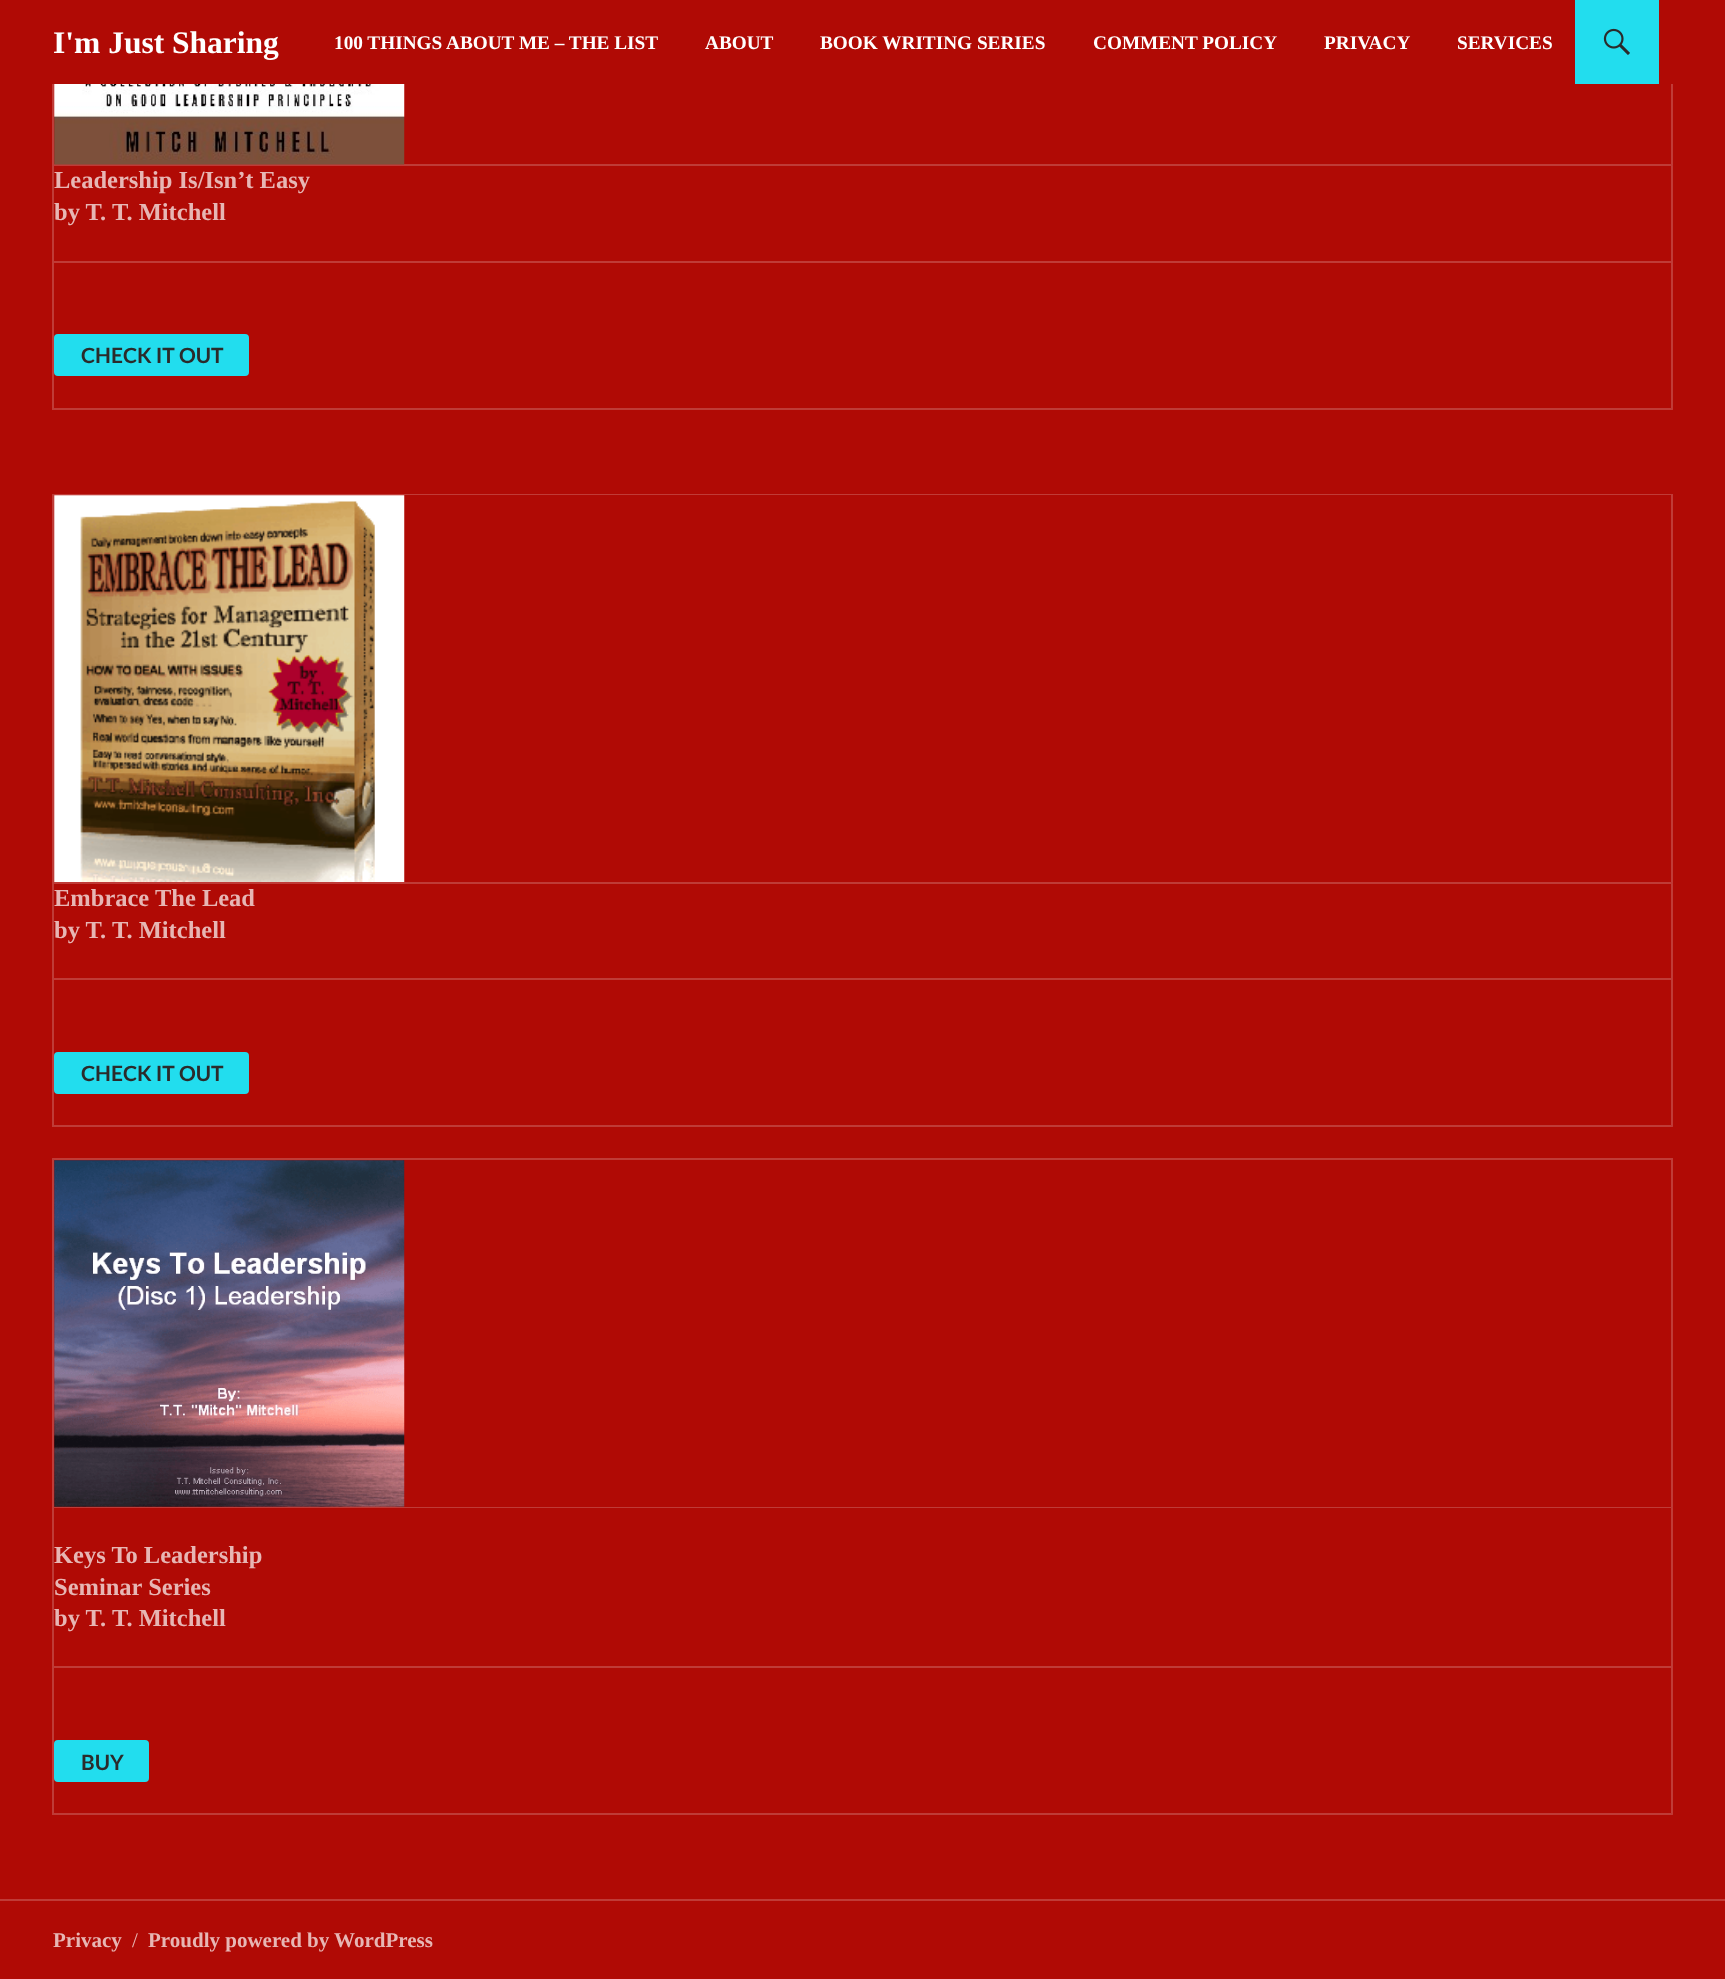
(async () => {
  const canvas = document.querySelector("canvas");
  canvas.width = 1725;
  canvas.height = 1979;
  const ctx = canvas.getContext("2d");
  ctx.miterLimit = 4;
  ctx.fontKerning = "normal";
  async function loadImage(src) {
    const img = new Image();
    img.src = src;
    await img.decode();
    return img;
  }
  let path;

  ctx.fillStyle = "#b00a05";
  ctx.fillRect(0, 0, 1725, 1979);
  ctx.fillStyle = "#c03b37";
  path = new Path2D("M52 410V-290L54-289V410Z");
  ctx.fill(path);
  path = new Path2D("M1673-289V166L1671 164V-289Z");
  ctx.fill(path);
  ctx.fillStyle = "#b00a05";
  ctx.fillRect(52, 0, 1621, 84);
  ctx.fillStyle = "#22ddee";
  ctx.fillRect(1575, 0, 84, 84);
  ctx.drawImage(await loadImage("img/1.png"), 1603, 28, 27, 27);
  ctx.fillStyle = "#c03b37";
  ctx.fillRect(0, 1899, 1725, 2);
  ctx.fillStyle = "rgba(255, 255, 255, 0.2)";
  path = new Path2D("M1673 166H54V164H1671Z");
  ctx.fill(path);
  ctx.drawImage(await loadImage("img/2.png"), 54, 84, 351, 81);
  ctx.fillStyle = "#c03b37";
  path = new Path2D("M1673 166V410L1671 408V166Z");
  ctx.fill(path);
  ctx.fillStyle = "rgba(255, 255, 255, 0.2)";
  path = new Path2D("M1673 410H54V408H1671Z");
  ctx.fill(path);
  ctx.fillStyle = "#c03b37";
  ctx.fillRect(54, 261, 1617, 2);
  ctx.fillStyle = "#22ddee";
  ctx.beginPath();
  ctx.roundRect(54, 334, 195, 42, 4);
  ctx.fill();
  ctx.fillStyle = "#c03b37";
  path = new Path2D("M52 494H1673V495H54Z");
  ctx.fill(path);
  ctx.fillStyle = "rgba(255, 255, 255, 0.2)";
  path = new Path2D("M52 1127V494L54 495V1127Z");
  ctx.fill(path);
  ctx.fillStyle = "#c03b37";
  path = new Path2D("M1673 495V884L1671 882V495Z");
  ctx.fill(path);
  ctx.fillStyle = "rgba(255, 255, 255, 0.2)";
  path = new Path2D("M1673 884H54V882H1671Z");
  ctx.fill(path);
  ctx.drawImage(await loadImage("img/3.png"), 54, 495, 351, 387);
  ctx.fillStyle = "#c03b37";
  path = new Path2D("M1673 884V1127L1671 1125V884Z");
  ctx.fill(path);
  ctx.fillStyle = "rgba(255, 255, 255, 0.2)";
  path = new Path2D("M1673 1127H54V1125H1671Z");
  ctx.fill(path);
  ctx.fillStyle = "#c03b37";
  ctx.fillRect(54, 978, 1617, 2);
  ctx.fillStyle = "#22ddee";
  ctx.beginPath();
  ctx.roundRect(54, 1052, 195, 42, 4);
  ctx.fill();
  ctx.fillStyle = "#c03b37";
  path = new Path2D("M52 1158H1673V1160H54Z");
  ctx.fill(path);
  ctx.fillStyle = "rgba(255, 255, 255, 0.2)";
  path = new Path2D("M52 1815V1158L54 1160V1815Z");
  ctx.fill(path);
  ctx.fillStyle = "#c03b37";
  path = new Path2D("M1673 1160V1508L1671 1507V1160Z");
  ctx.fill(path);
  ctx.fillStyle = "rgba(255, 255, 255, 0.2)";
  path = new Path2D("M1673 1508H54V1507H1671Z");
  ctx.fill(path);
  ctx.drawImage(await loadImage("img/4.png"), 54, 1160, 351, 347);
  ctx.fillStyle = "#c03b37";
  path = new Path2D("M1673 1508V1815L1671 1813V1508Z");
  ctx.fill(path);
  ctx.fillStyle = "rgba(255, 255, 255, 0.2)";
  path = new Path2D("M1673 1815H54V1813H1671Z");
  ctx.fill(path);
  ctx.fillStyle = "#c03b37";
  ctx.fillRect(54, 1666, 1617, 2);
  ctx.fillStyle = "#22ddee";
  ctx.beginPath();
  ctx.roundRect(54, 1740, 95, 42, 4);
  ctx.fill();
  ctx.font = "bold 31.5px Liberation Serif";
  ctx.fillStyle = "#ffffff";
  ctx.fillText("I'm Just Sharing", 53, 53);
  ctx.font = "bold 19.25px Liberation Serif";
  for (const [text, x, y] of [
    ["100 THINGS ABOUT ME – THE LIST", 334, 49],
    ["ABOUT", 705, 49],
    ["BOOK WRITING SERIES", 820, 49],
    ["COMMENT POLICY", 1093, 49],
    ["PRIVACY", 1324, 49],
    ["SERVICES", 1457, 49],
  ]) {
    ctx.fillText(text, x, y);
  }
  ctx.font = "bold 24.5px Liberation Serif";
  ctx.fillStyle = "#e7b6b4";
  ctx.fillText("Leadership Is/Isn’t Easy", 54, 188);
  ctx.fillText("by T. T. Mitchell", 54, 220);
  ctx.font = "bold 21px Lato";
  ctx.fillStyle = "#2b2b2b";
  ctx.fillText("CHECK IT OUT", 81, 363);
  ctx.font = "bold 24.5px Liberation Serif";
  ctx.fillStyle = "#e7b6b4";
  ctx.fillText("Embrace The Lead", 54, 906);
  ctx.fillText("by T. T. Mitchell", 54, 938);
  ctx.font = "bold 21px Lato";
  ctx.fillStyle = "#2b2b2b";
  ctx.fillText("CHECK IT OUT", 81, 1081);
  ctx.font = "bold 24.5px Liberation Serif";
  ctx.fillStyle = "#e7b6b4";
  for (const [text, x, y] of [
    ["Keys To Leadership", 54, 1563],
    ["Seminar Series", 54, 1595],
    ["by T. T. Mitchell", 54, 1626],
  ]) {
    ctx.fillText(text, x, y);
  }
  ctx.font = "bold 21px Lato";
  ctx.fillStyle = "#2b2b2b";
  ctx.fillText("BUY", 81, 1770);
  ctx.font = "bold 21px Liberation Serif";
  ctx.fillStyle = "#e7b6b4";
  ctx.fillText("Privacy", 53, 1947);
  ctx.font = "21px Liberation Serif";
  ctx.fillText("/", 132, 1947);
  ctx.font = "bold 21px Liberation Serif";
  ctx.fillText("Proudly powered by WordPress", 148, 1947);
})();
